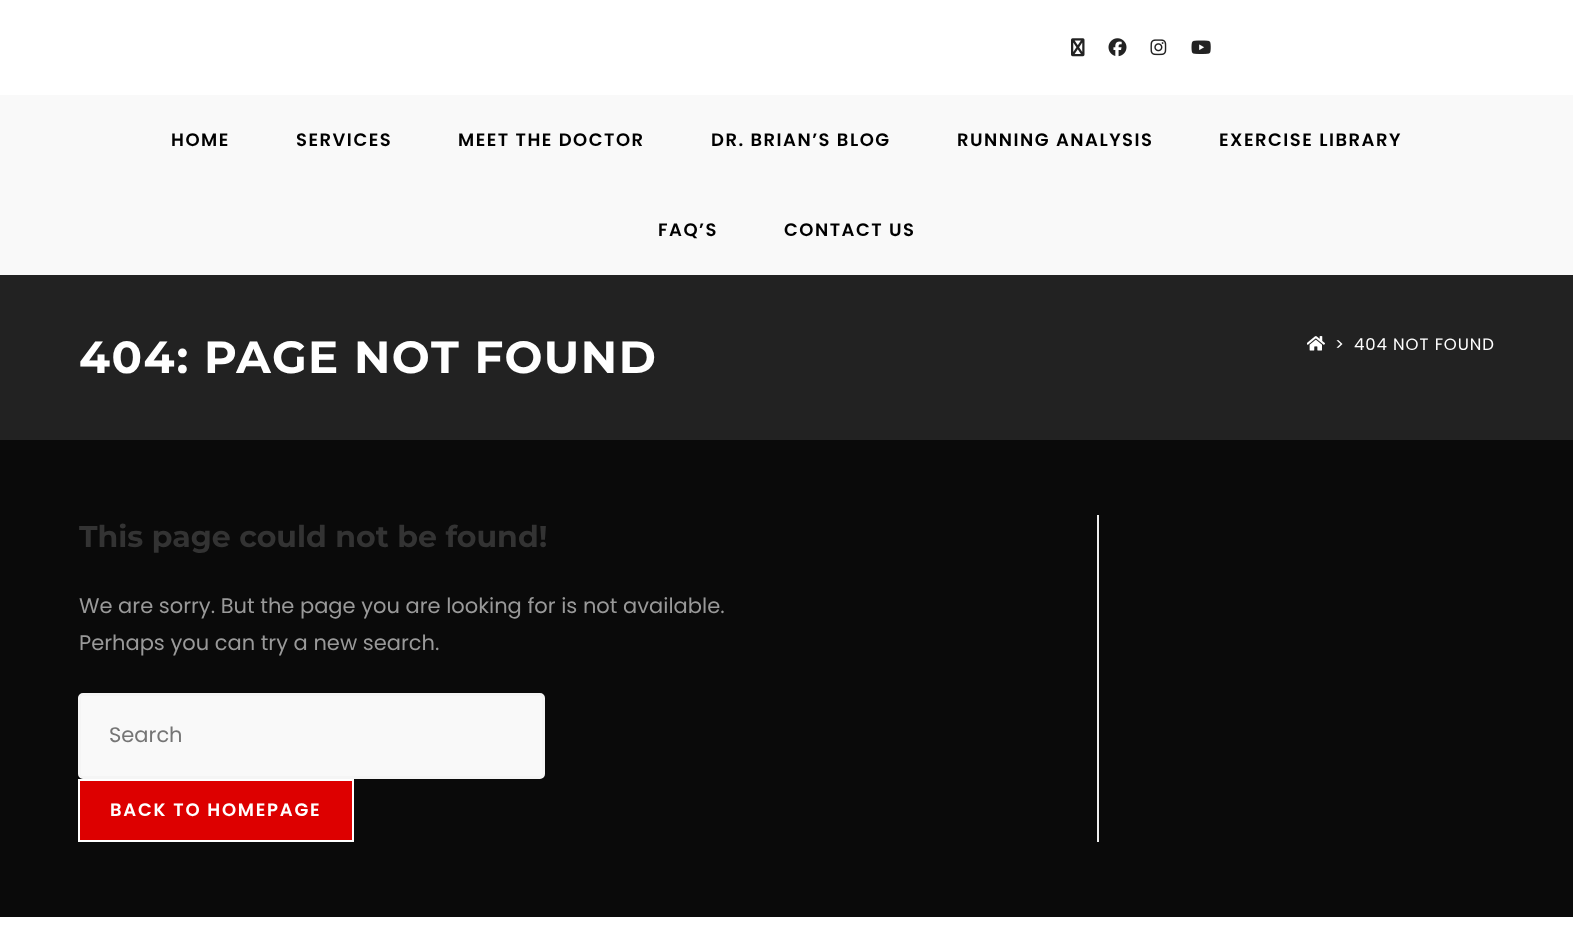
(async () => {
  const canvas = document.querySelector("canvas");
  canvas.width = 1573;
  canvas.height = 935;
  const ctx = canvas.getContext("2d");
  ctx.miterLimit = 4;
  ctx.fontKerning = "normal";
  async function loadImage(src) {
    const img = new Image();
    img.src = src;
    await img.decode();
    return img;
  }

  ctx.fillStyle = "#0a0a0a";
  ctx.fillRect(0, 0, 1573, 935);
  ctx.fillStyle = "#ffffff";
  ctx.fillRect(0, 0, 1573, 95);
  ctx.drawImage(await loadImage("img/1.png"), 1071, 38, 14, 19);
  ctx.drawImage(await loadImage("img/2.png"), 1108, 38, 19, 19);
  ctx.drawImage(await loadImage("img/3.png"), 1150, 39, 17, 17);
  ctx.drawImage(await loadImage("img/4.png"), 1191, 40, 20, 14);
  ctx.fillStyle = "#f9f9f9";
  ctx.fillRect(0, 95, 1573, 180);
  ctx.fillStyle = "#222222";
  ctx.fillRect(0, 275, 1573, 165);
  ctx.drawImage(await loadImage("img/5.png"), 1307, 336, 18, 15);
  ctx.fillStyle = "#eeeeee";
  ctx.fillRect(1097, 515, 2, 327);
  ctx.fillStyle = "#f9f9f9";
  ctx.beginPath();
  ctx.roundRect(79.5, 694.5, 464, 83, 3.5);
  ctx.fill();
  ctx.strokeStyle = "#f5f5f5";
  ctx.lineWidth = 3;
  ctx.stroke();
  ctx.fillStyle = "#dd0000";
  ctx.beginPath();
  ctx.rect(79, 780, 274, 61);
  ctx.fill();
  ctx.strokeStyle = "#ffffff";
  ctx.lineWidth = 2;
  ctx.stroke();
  ctx.fillStyle = "#ffffff";
  ctx.fillRect(0, 917, 1573, 18);
  ctx.letterSpacing = "1.5px";
  ctx.font = "600 18px Poppins";
  ctx.fillStyle = "#000000";
  for (const [text, x, y] of [
    ["HOME", 171, 146],
    ["SERVICES", 296, 146],
    ["MEET THE DOCTOR", 458, 146],
    ["DR. BRIAN’S BLOG", 711, 146],
    ["RUNNING ANALYSIS", 957, 146],
    ["EXERCISE LIBRARY", 1219, 146],
    ["FAQ’S", 658, 236],
    ["CONTACT US", 784, 236],
  ]) {
    ctx.fillText(text, x, y);
  }
  ctx.font = "bold 45px Montserrat";
  ctx.fillStyle = "#ffffff";
  ctx.fillText("404: PAGE NOT FOUND", 79, 373);
  ctx.letterSpacing = "0.9px";
  ctx.font = "16.5px Poppins";
  ctx.fillText(">", 1335, 350);
  ctx.fillText("404 NOT FOUND", 1354, 350);
  ctx.letterSpacing = "0px";
  ctx.font = "bold 30px Montserrat";
  ctx.fillStyle = "#333333";
  ctx.fillText("This page could not be found!", 79, 547);
  ctx.font = "21px Poppins";
  ctx.fillStyle = "#999999";
  ctx.fillText("We are sorry. But the page you are looking for is not available.", 79, 613);
  ctx.fillText("Perhaps you can try a new search.", 79, 650);
  ctx.fillStyle = "#757575";
  ctx.fillText("Search", 109, 742);
  ctx.letterSpacing = "1.75px";
  ctx.font = "600 18px Poppins";
  ctx.fillStyle = "#ffffff";
  ctx.fillText("BACK TO HOMEPAGE", 110, 816);
})();
